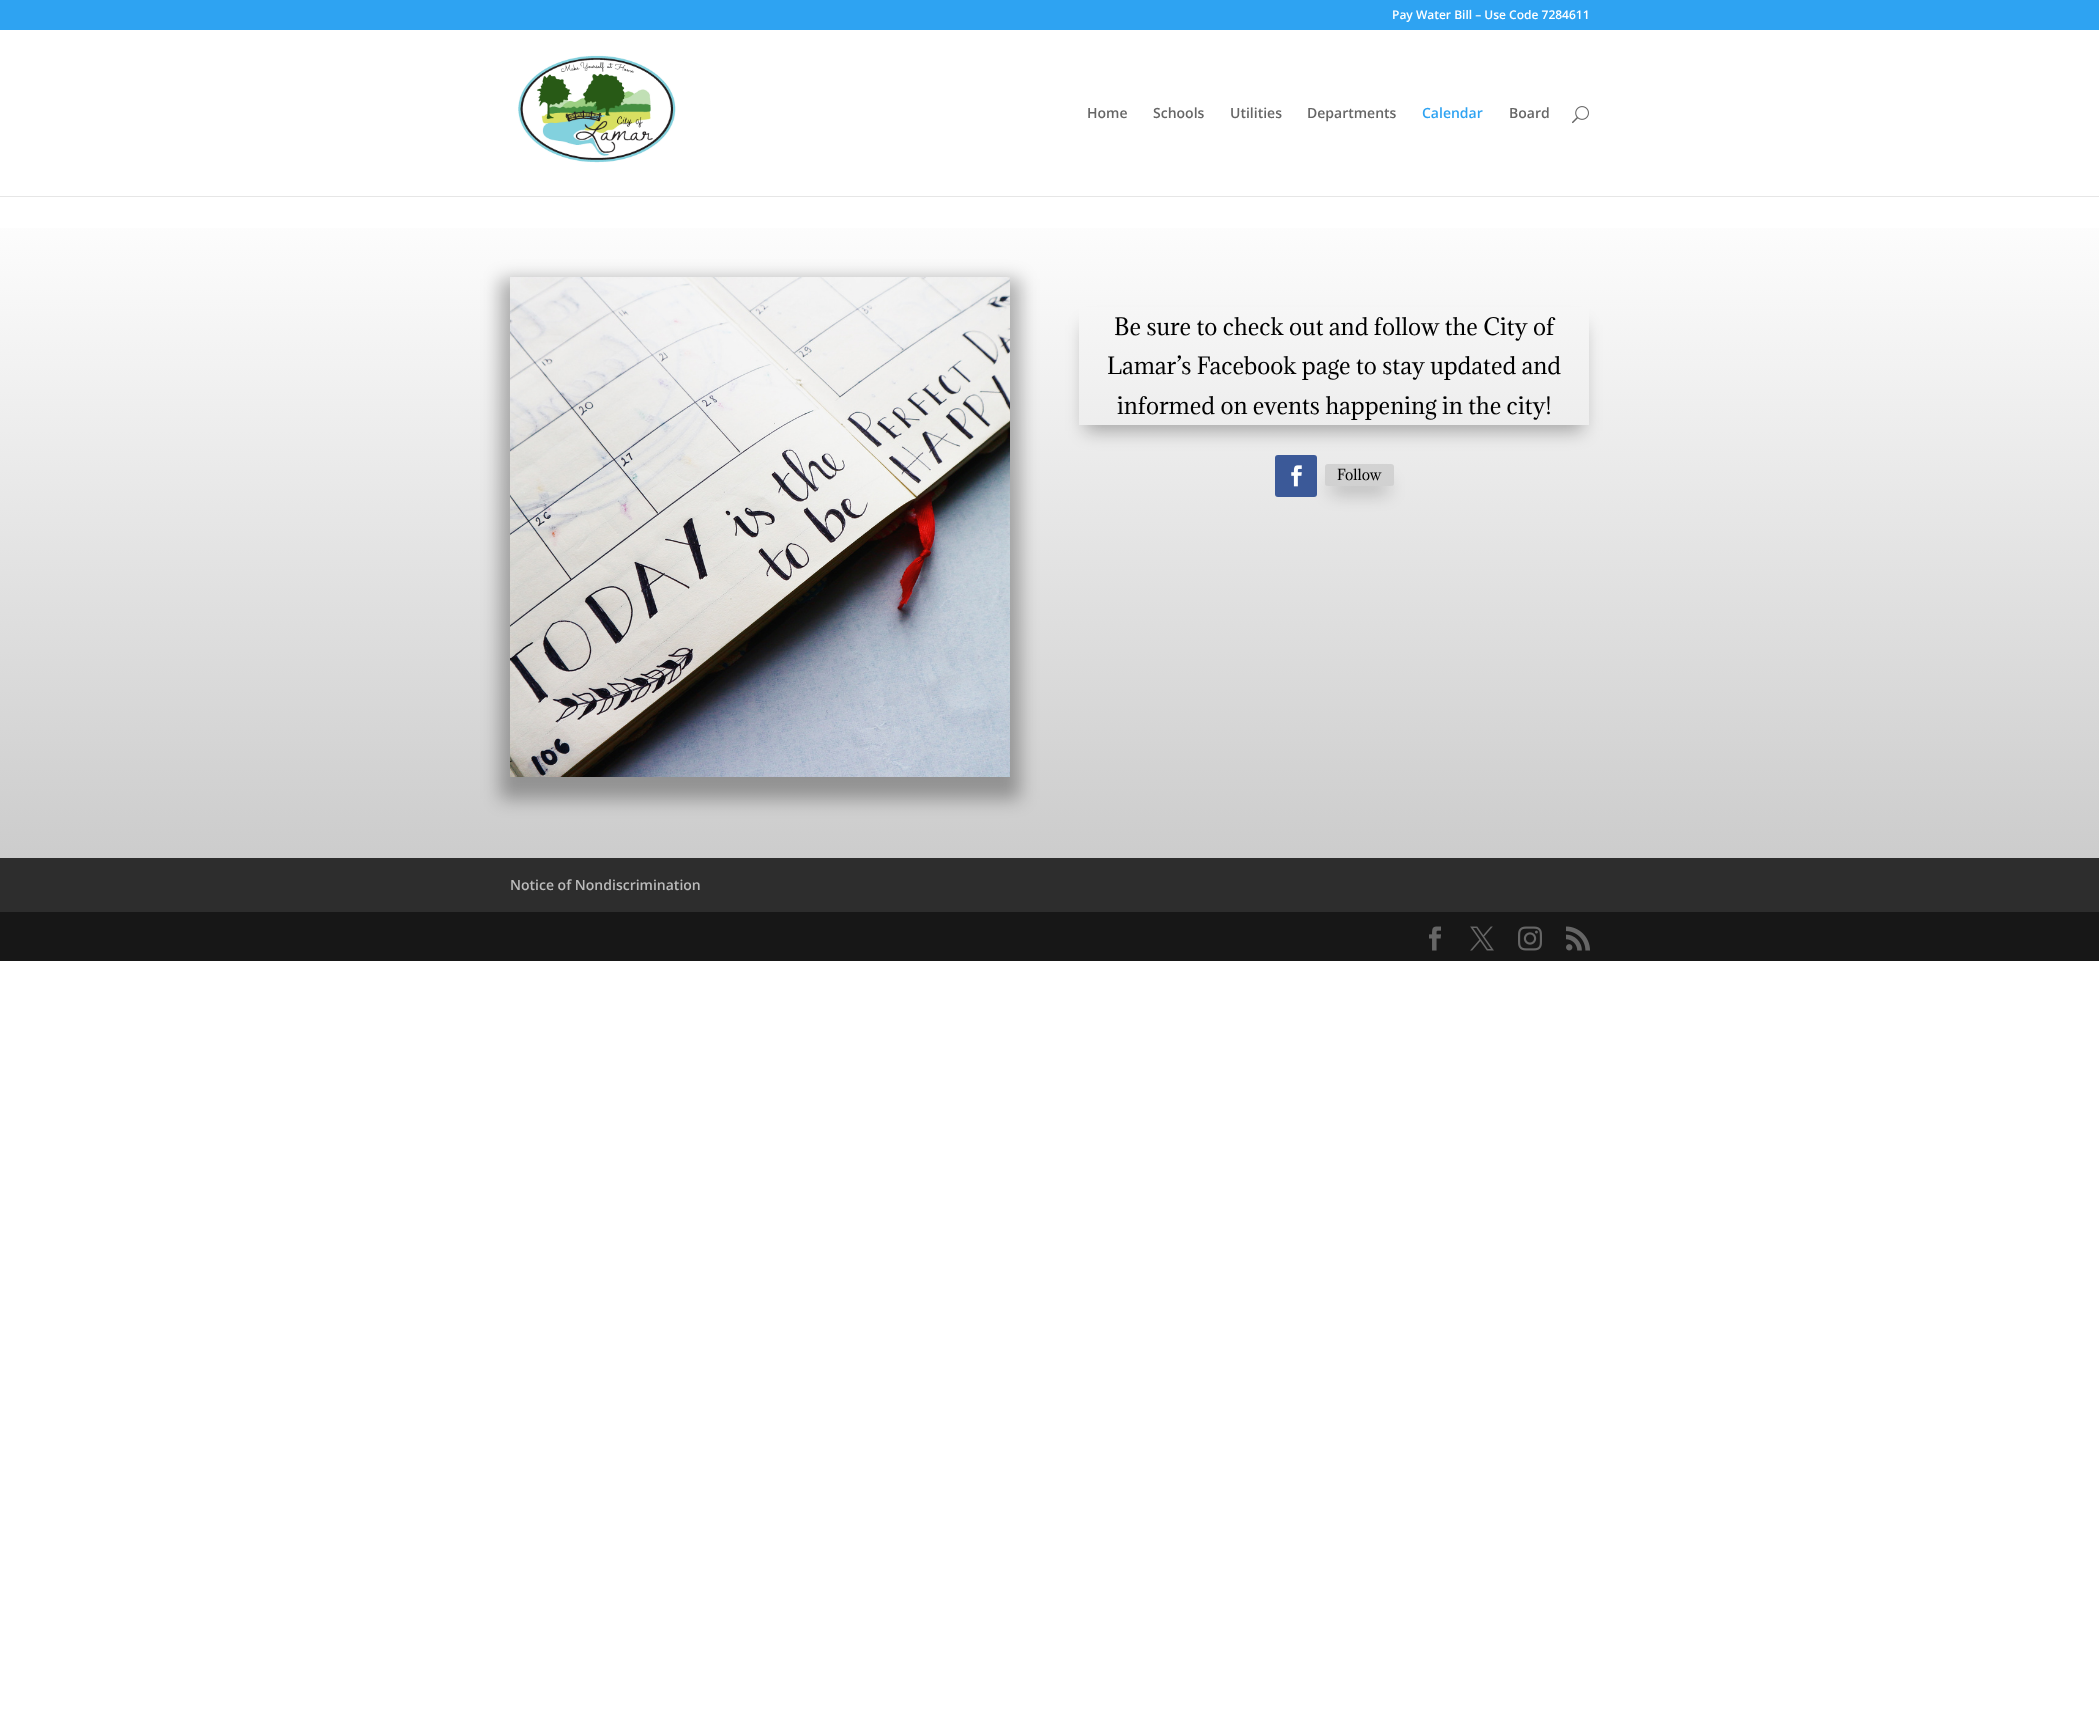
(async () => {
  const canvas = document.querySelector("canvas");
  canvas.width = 2099;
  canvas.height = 1712;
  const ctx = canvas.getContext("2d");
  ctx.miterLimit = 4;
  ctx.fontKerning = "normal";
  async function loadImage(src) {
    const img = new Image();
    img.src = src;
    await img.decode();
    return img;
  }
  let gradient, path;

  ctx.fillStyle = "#ffffff";
  ctx.fillRect(0, 0, 2099, 1712);
  ctx.fillStyle = "#2ea3f2";
  ctx.fillRect(0, 0, 2099, 30);
  ctx.fillStyle = "#e6e6e6";
  ctx.fillRect(0, 196, 2099, 1);
  ctx.drawImage(await loadImage("img/1.png"), 518, 55, 158, 108);
  ctx.drawImage(await loadImage("img/2.png"), 1572, 106, 17, 18);
  gradient = ctx.createLinearGradient(1050, 196, 1050, 858);
  gradient.addColorStop(0, "#ffffff");
  gradient.addColorStop(1, "#cccccc");
  ctx.fillStyle = gradient;
  ctx.fillRect(0, 228, 2099, 630);
  ctx.fillStyle = "rgba(0, 0, 0, 0.3)";
  ctx.filter = "blur(9px)";
  ctx.beginPath();
  ctx.rect(500, 279, 520, 520);
  ctx.fill();
  ctx.filter = "none";
  ctx.drawImage(await loadImage("img/3.png"), 510, 277, 500, 500);
  ctx.save();
  path = new Path2D("M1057 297H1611V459H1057ZM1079 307H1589V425H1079Z");
  ctx.clip(path, "evenodd");
  ctx.filter = "blur(9px)";
  ctx.beginPath();
  ctx.rect(1085, 325, 498, 106);
  ctx.fill();
  ctx.filter = "none";
  ctx.restore();
  ctx.fillStyle = "#3b5998";
  ctx.beginPath();
  ctx.roundRect(1275, 455, 42, 42, 3);
  ctx.fill();
  ctx.drawImage(await loadImage("img/4.png"), 1291, 465, 11, 22);
  ctx.save();
  path = new Path2D("M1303 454H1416V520H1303ZM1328 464H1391C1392.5 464 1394 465.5 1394 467V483C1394 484.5 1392.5 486 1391 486H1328C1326.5 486 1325 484.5 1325 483V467C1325 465.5 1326.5 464 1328 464Z");
  ctx.clip(path, "evenodd");
  ctx.fillStyle = "rgba(0, 0, 0, 0.3)";
  ctx.filter = "blur(9px)";
  ctx.beginPath();
  ctx.rect(1331, 482, 57, 10);
  ctx.fill();
  ctx.filter = "none";
  ctx.restore();
  ctx.fillStyle = "rgba(0, 0, 0, 0.1)";
  ctx.beginPath();
  ctx.roundRect(1325, 464, 69, 22, 3);
  ctx.fill();
  ctx.fillStyle = "#2d2d2d";
  ctx.fillRect(0, 858, 2099, 54);
  ctx.fillStyle = "#171717";
  ctx.fillRect(0, 912, 2099, 49);
  ctx.drawImage(await loadImage("img/5.png"), 1429, 926, 12, 25);
  ctx.drawImage(await loadImage("img/6.png"), 1470, 926, 24, 25);
  ctx.drawImage(await loadImage("img/7.png"), 1518, 926, 24, 25);
  ctx.drawImage(await loadImage("img/8.png"), 1566, 926, 24, 25);
  ctx.font = "600 12px Open Sans";
  ctx.fillStyle = "#ffffff";
  ctx.fillText("Pay Water Bill – Use Code 7284611", 1392, 19);
  ctx.font = "600 14px Open Sans";
  ctx.fillStyle = "#666666";
  for (const [text, x, y] of [
    ["Home", 1087, 118],
    ["Schools", 1153, 118],
    ["Utilities", 1230, 118],
    ["Departments", 1307, 118],
  ]) {
    ctx.fillText(text, x, y);
  }
  ctx.fillStyle = "#2ea3f2";
  ctx.fillText("Calendar", 1422, 118);
  ctx.fillStyle = "#666666";
  ctx.fillText("Board", 1509, 118);
  ctx.font = "22px Adamina";
  ctx.fillStyle = "#000000";
  for (const [text, x, y] of [
    ["Be sure to check out and follow the City of", 1114, 335],
    ["Lamar’s Facebook page to stay updated and", 1107, 374],
    ["informed on events happening in the city!", 1117, 414],
  ]) {
    ctx.fillText(text, x, y);
  }
  ctx.font = "14px Adamina";
  ctx.fillText("Follow", 1337, 480);
  ctx.font = "600 14px Open Sans";
  ctx.fillStyle = "#bbbbbb";
  ctx.fillText("Notice of Nondiscrimination", 510, 890);
})();
